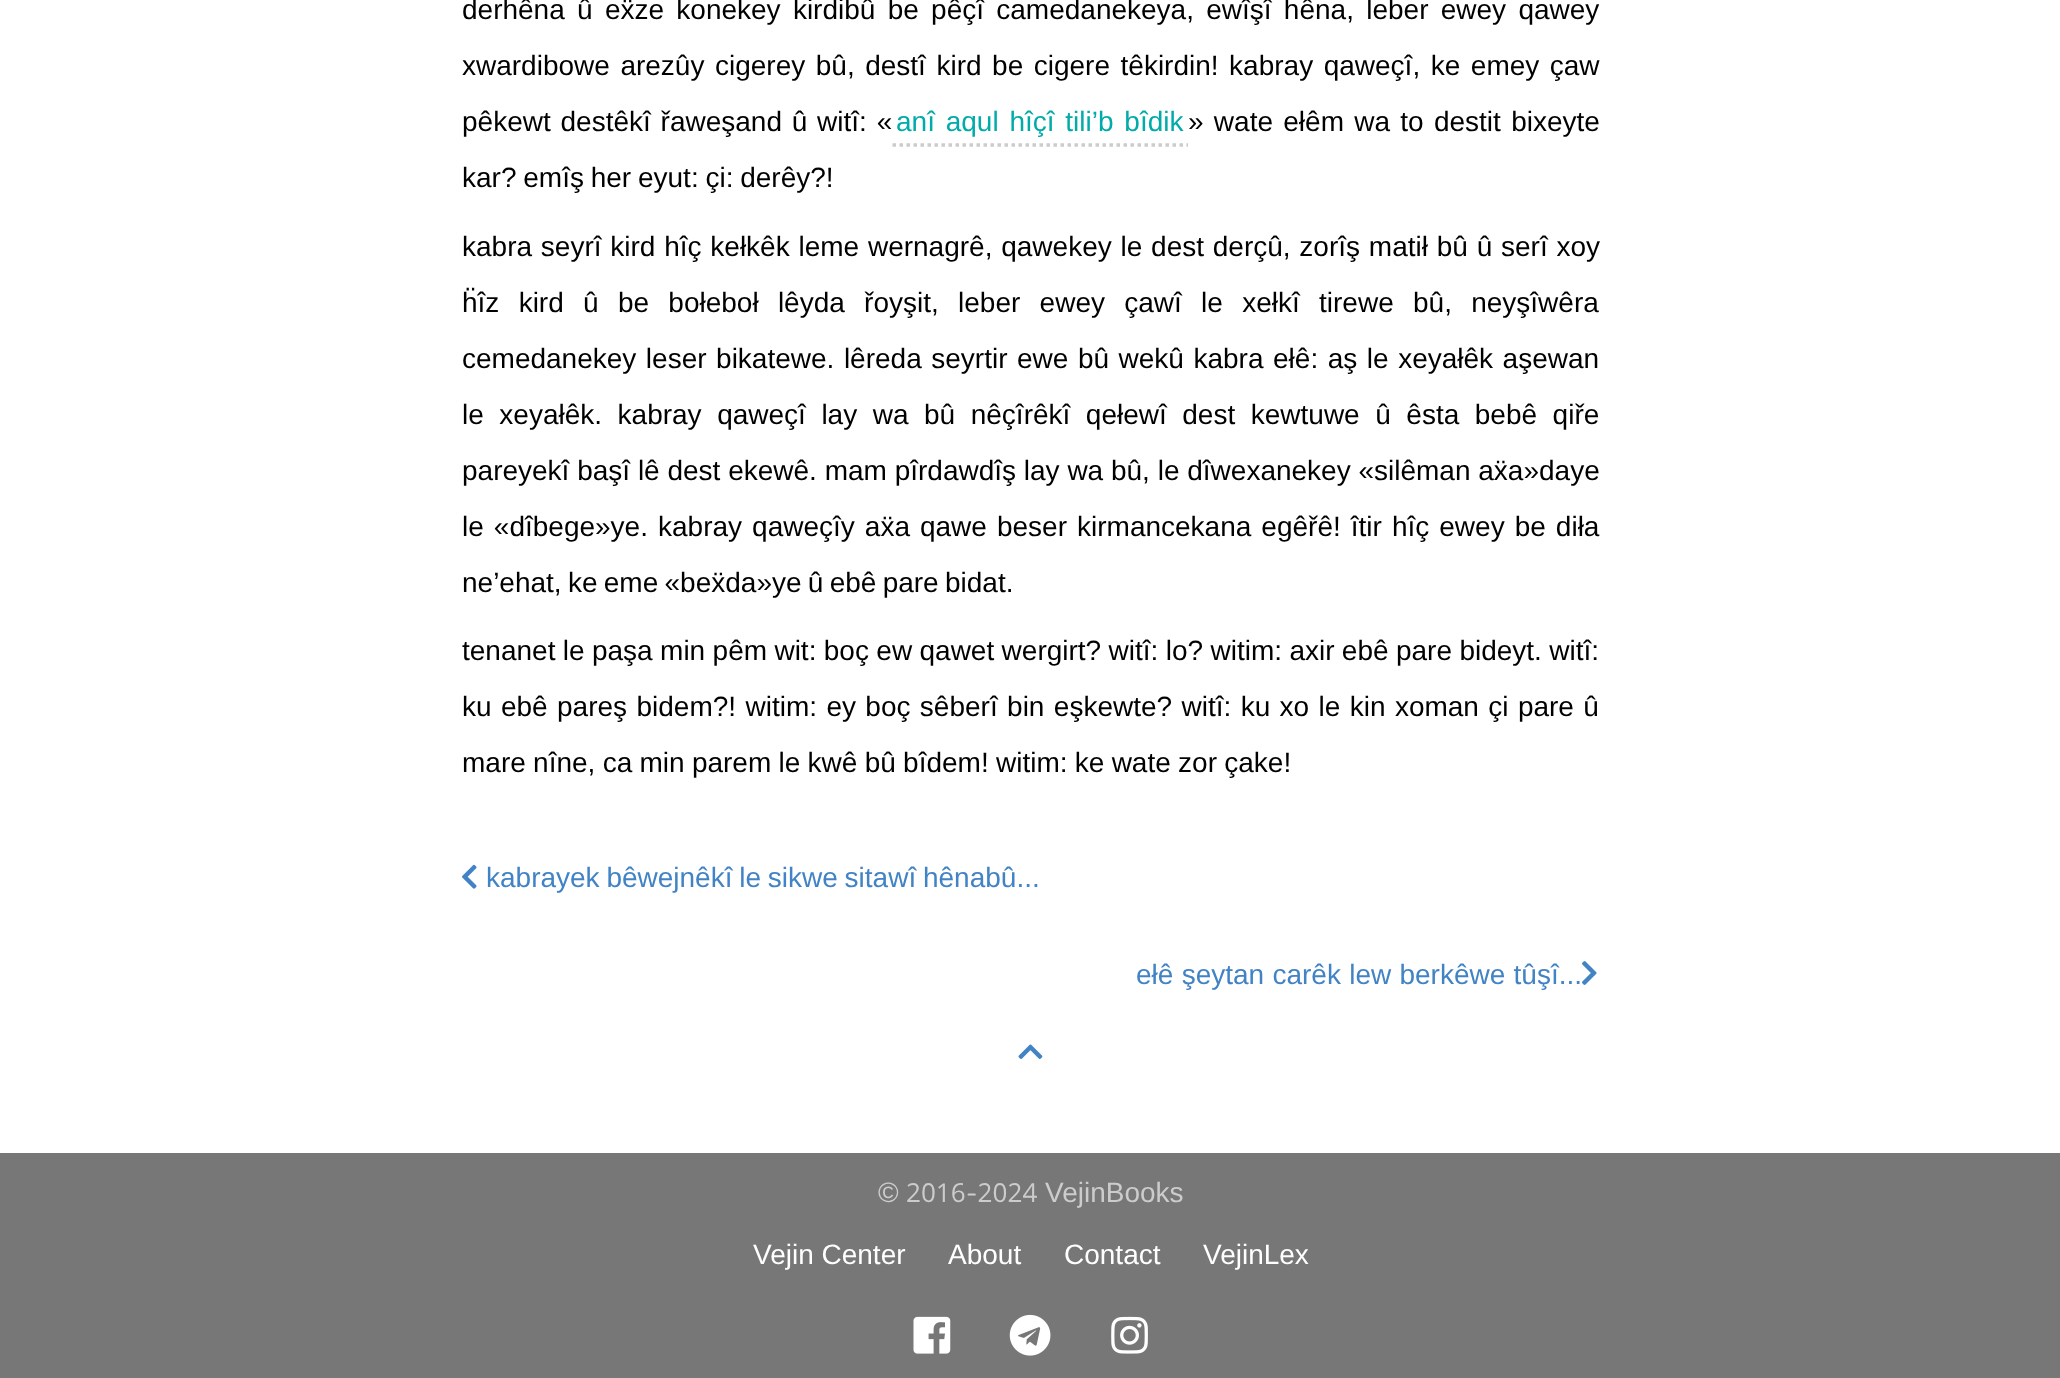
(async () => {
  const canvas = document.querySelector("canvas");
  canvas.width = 2060;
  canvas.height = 1378;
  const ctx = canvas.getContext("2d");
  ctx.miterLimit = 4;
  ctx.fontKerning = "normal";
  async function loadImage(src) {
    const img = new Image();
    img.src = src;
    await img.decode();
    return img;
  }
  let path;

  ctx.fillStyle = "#ffffff";
  ctx.fillRect(0, 0, 2060, 1378);
  path = new Path2D("M892.5 145H1188");
  ctx.strokeStyle = "#cccccc";
  ctx.lineWidth = 3.5;
  ctx.setLineDash([3.5, 3.5]);
  ctx.stroke(path);
  ctx.drawImage(await loadImage("img/1.png"), 462, 864, 15, 25);
  ctx.drawImage(await loadImage("img/2.png"), 1582, 961, 15, 24);
  ctx.drawImage(await loadImage("img/3.png"), 1018, 1044, 25, 15);
  ctx.fillStyle = "#777777";
  ctx.fillRect(0, 1153, 2060, 225);
  ctx.drawImage(await loadImage("img/4.png"), 913, 1316, 38, 38);
  ctx.drawImage(await loadImage("img/5.png"), 1009, 1314, 42, 42);
  ctx.drawImage(await loadImage("img/6.png"), 1111, 1316, 37, 38);
  ctx.wordSpacing = "4.5px";
  ctx.font = "28px Liberation Sans";
  ctx.fillStyle = "#000000";
  ctx.fillText("derhêna û eẍze konekey kirdibû be pêçî camedanekeya, ewîşî hêna, leber ewey qawey", 462, 19);
  ctx.wordSpacing = "2.75px";
  ctx.fillText("xwardibowe arezûy cigerey bû, destî kird be cigere têkirdin! kabray qaweçî, ke emey çaw", 462, 75);
  ctx.wordSpacing = "2px";
  ctx.fillText("pêkewt destêkî řaweşand û witî: «", 462, 131);
  ctx.wordSpacing = "3px";
  ctx.fillStyle = "#00aba9";
  ctx.fillText("anî aqul hîçî tili’b bîdik", 896, 131);
  ctx.wordSpacing = "2.5px";
  ctx.fillStyle = "#000000";
  ctx.fillText("» wate ełêm wa to destit bixeyte", 1188, 131);
  ctx.wordSpacing = "-1px";
  ctx.fillText("kar? emîş her eyut: çi: derêy?!", 462, 187);
  ctx.wordSpacing = "1px";
  ctx.fillText("kabra seyrî kird hîç kełkêk leme wernagrê, qawekey le dest derçû, zorîş matił bû û serî xoy", 462, 256);
  ctx.wordSpacing = "11.5px";
  ctx.fillText("ḧîz kird û be bołeboł lêyda řoyşit, leber ewey çawî le xełkî tirewe bû, neyşîwêra", 462, 312);
  ctx.wordSpacing = "1.75px";
  ctx.fillText("cemedanekey leser bikatewe. lêreda seyrtir ewe bû wekû kabra ełê: aş le xeyałêk aşewan", 462, 368);
  ctx.wordSpacing = "7.75px";
  ctx.fillText("le xeyałêk. kabray qaweçî lay wa bû nêçîrêkî qełewî dest kewtuwe û êsta bebê qiře", 462, 424);
  ctx.wordSpacing = "0px";
  ctx.fillText("pareyekî başî lê dest ekewê. mam pîrdawdîş lay wa bû, le dîwexanekey «silêman aẍa»daye", 462, 480);
  ctx.wordSpacing = "2.25px";
  ctx.fillText("le «dîbege»ye. kabray qaweçîy aẍa qawe beser kirmancekana egêřê! îtir hîç ewey be diła", 462, 536);
  ctx.wordSpacing = "-1.5px";
  ctx.fillText("ne’ehat, ke eme «beẍda»ye û ebê pare bidat.", 462, 592);
  ctx.wordSpacing = "-0.4px";
  ctx.fillText("tenanet le paşa min pêm wit: boç ew qawet wergirt? witî: lo? witim: axir ebê pare bideyt. witî:", 462, 660);
  ctx.wordSpacing = "1.6px";
  ctx.fillText("ku ebê pareş bidem?! witim: ey boç sêberî bin eşkewte? witî: ku xo le kin xoman çi pare û", 462, 716);
  ctx.wordSpacing = "-0.5px";
  ctx.fillText("mare nîne, ca min parem le kwê bû bîdem! witim: ke wate zor çake!", 462, 772);
  ctx.wordSpacing = "-1px";
  ctx.fillStyle = "#4183c4";
  ctx.fillText("kabrayek bêwejnêkî le sikwe sitawî hênabû...", 486, 887);
  ctx.wordSpacing = "0.5px";
  ctx.fillText("ełê şeytan carêk lew berkêwe tûşî...", 1136, 984);
  ctx.wordSpacing = "0px";
  ctx.fillStyle = "#cccccc";
  ctx.fillText("©", 878, 1202);
  ctx.font = "28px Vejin";
  ctx.fillText("2016-2024", 906, 1202);
  ctx.font = "28px Liberation Sans";
  ctx.fillText("VejinBooks", 1045, 1202);
  ctx.fillStyle = "#ffffff";
  for (const [text, x, y] of [
    ["Vejin Center", 753, 1264],
    ["About", 948, 1264],
    ["Contact", 1064, 1264],
    ["VejinLex", 1203, 1264],
  ]) {
    ctx.fillText(text, x, y);
  }
})();
